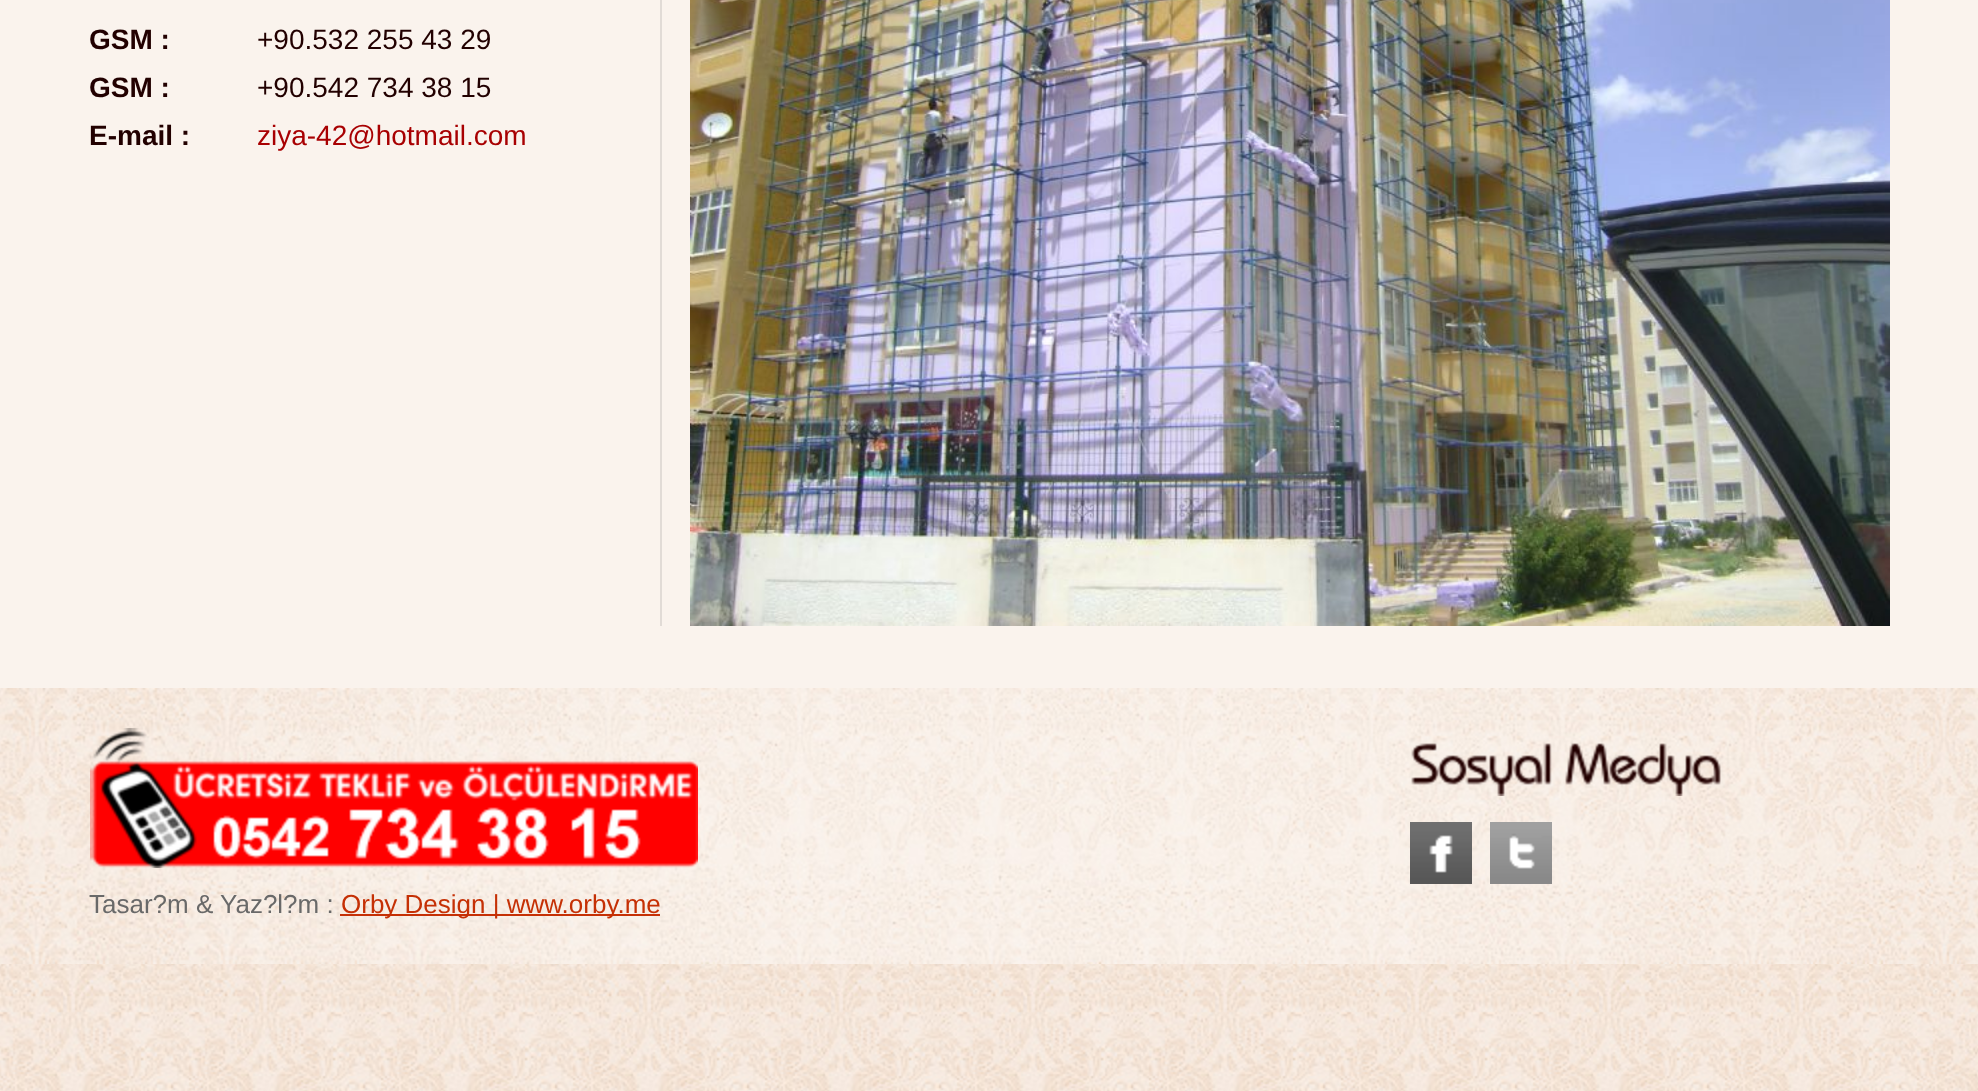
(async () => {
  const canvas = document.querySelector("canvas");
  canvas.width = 1978;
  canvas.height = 1091;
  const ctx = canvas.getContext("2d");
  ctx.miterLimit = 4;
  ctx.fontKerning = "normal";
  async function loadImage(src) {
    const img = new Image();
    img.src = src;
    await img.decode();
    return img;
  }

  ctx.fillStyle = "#faf3ed";
  ctx.fillRect(0, 0, 1978, 1091);
  ctx.fillStyle = "#e1dbd6";
  ctx.fillRect(660, 0, 2, 626);
  ctx.drawImage(await loadImage("img/1.png"), 690, 0, 1200, 626);
  ctx.drawImage(await loadImage("img/2.png"), 0, 964, 1978, 127);
  ctx.drawImage(await loadImage("img/3.png"), 0, 688, 1978, 276);
  ctx.drawImage(await loadImage("img/4.png"), 1411, 743, 141, 53);
  ctx.drawImage(await loadImage("img/5.png"), 1565, 743, 156, 53);
  ctx.drawImage(await loadImage("img/6.png"), 1410, 822, 62, 62);
  ctx.drawImage(await loadImage("img/7.png"), 1490, 822, 62, 62);
  ctx.drawImage(await loadImage("img/8.png"), 90, 728, 608, 140);
  ctx.fillStyle = "#c53005";
  ctx.fillRect(340, 914, 320, 2);
  ctx.font = "bold 28px Liberation Sans";
  ctx.fillStyle = "#220000";
  ctx.fillText("GSM :", 89, 49);
  ctx.font = "28px Liberation Sans";
  ctx.fillText("+90.532 255 43 29", 257, 49);
  ctx.font = "bold 28px Liberation Sans";
  ctx.fillText("GSM :", 89, 97);
  ctx.font = "28px Liberation Sans";
  ctx.fillText("+90.542 734 38 15", 257, 97);
  ctx.font = "bold 28px Liberation Sans";
  ctx.fillText("E-mail :", 89, 145);
  ctx.font = "28px Liberation Sans";
  ctx.fillStyle = "#a80002";
  ctx.fillText("ziya-42@hotmail.com", 257, 145);
  ctx.font = "26px Liberation Sans";
  ctx.fillStyle = "#696969";
  ctx.fillText("Tasar?m & Yaz?l?m :", 89, 913);
  ctx.fillStyle = "#c53005";
  ctx.fillText("Orby Design | www.orby.me", 341, 913);
})();
